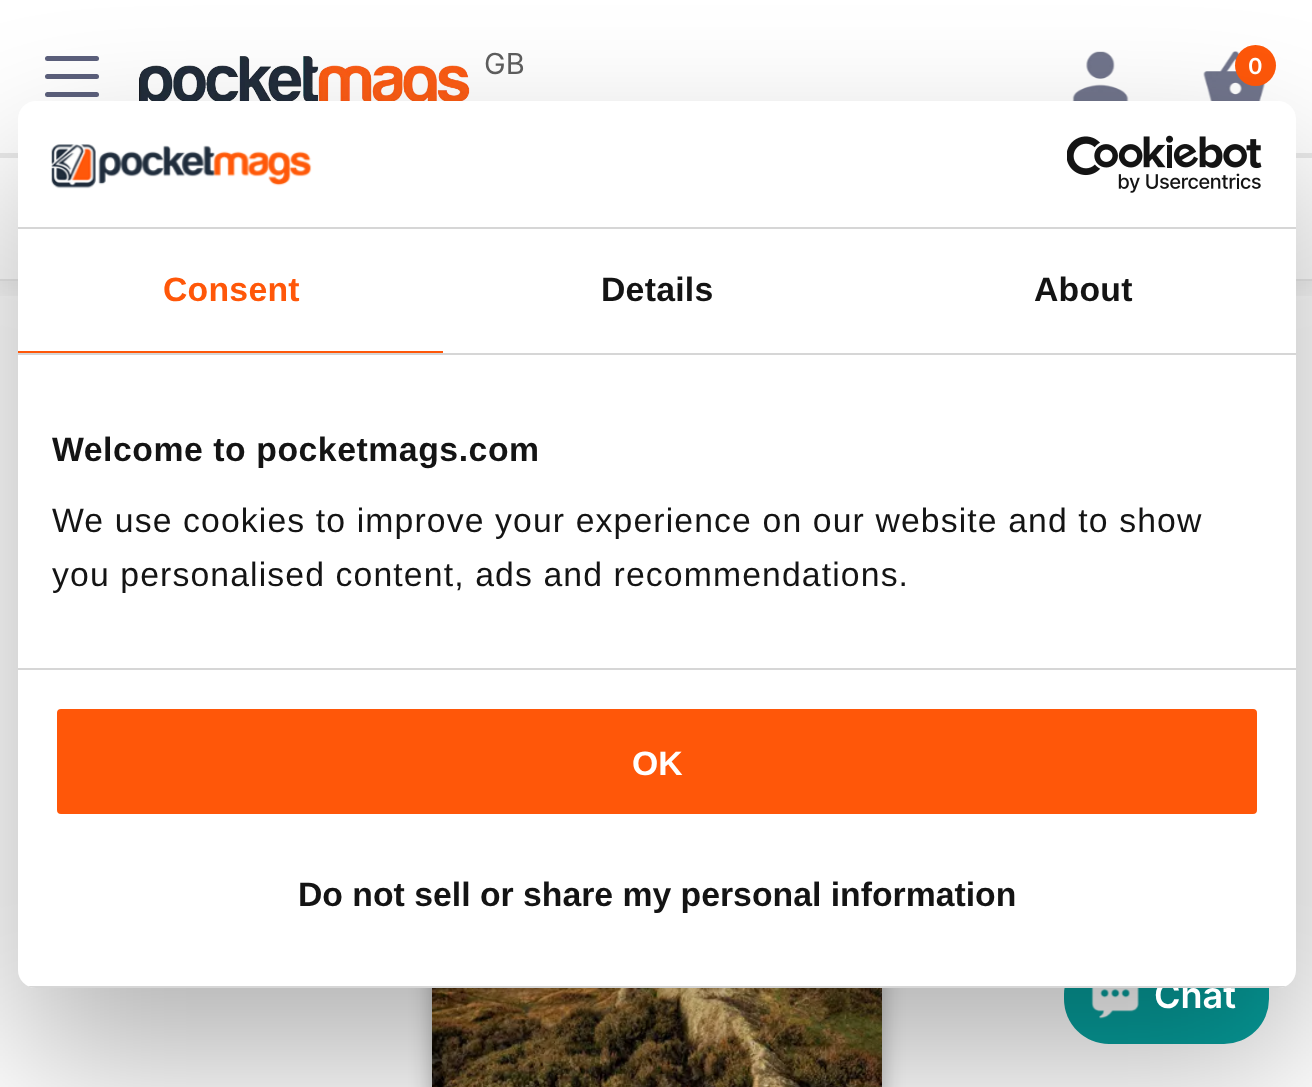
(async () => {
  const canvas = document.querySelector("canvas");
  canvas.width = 1312;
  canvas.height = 1087;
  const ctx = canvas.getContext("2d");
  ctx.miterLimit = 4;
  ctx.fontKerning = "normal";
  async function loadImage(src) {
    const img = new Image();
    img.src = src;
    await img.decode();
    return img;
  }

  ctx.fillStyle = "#ffffff";
  ctx.fillRect(0, 0, 1312, 1087);
  ctx.save();
  ctx.beginPath();
  ctx.rect(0, 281, 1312, 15);
  ctx.clip();
  ctx.fillStyle = "rgba(0, 0, 0, 0.05)";
  ctx.filter = "blur(11px)";
  ctx.beginPath();
  ctx.rect(-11, -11, 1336, 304);
  ctx.fill();
  ctx.filter = "none";
  ctx.restore();
  ctx.fillStyle = "#eaeaea";
  ctx.fillRect(0, 153, 1312, 5);
  ctx.fillStyle = "#5c607c";
  ctx.beginPath();
  ctx.roundRect(45, 56, 54, 5, 2.5);
  ctx.fill();
  ctx.beginPath();
  ctx.roundRect(45, 74, 54, 5, 2.5);
  ctx.fill();
  ctx.beginPath();
  ctx.roundRect(45, 92, 54, 5, 2.5);
  ctx.fill();
  ctx.drawImage(await loadImage("img/1.png"), 139, 56, 331, 45);
  ctx.drawImage(await loadImage("img/2.png"), 1072, 51, 57, 50);
  ctx.drawImage(await loadImage("img/3.png"), 1203, 51, 63, 50);
  ctx.fillStyle = "#ff580a";
  ctx.beginPath();
  ctx.arc(1255.5, 65.5, 20.5, 0, Math.PI * 2);
  ctx.fill();
  ctx.fillStyle = "#eaeaea";
  ctx.fillRect(0, 279, 1312, 2);
  ctx.fillStyle = "rgba(0, 0, 0, 0.3)";
  ctx.filter = "blur(11px)";
  ctx.beginPath();
  ctx.roundRect(432, 668, 450, 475, 23);
  ctx.fill();
  ctx.filter = "none";
  ctx.drawImage(await loadImage("img/4.png"), 432, 988, 450, 99);
  ctx.fillStyle = "#07a09e";
  ctx.beginPath();
  ctx.roundRect(1064, 950, 205, 94, [45, 11, 45, 45]);
  ctx.fill();
  ctx.drawImage(await loadImage("img/5.png"), 1091, 988, 48, 31);
  ctx.fillStyle = "rgba(0, 0, 0, 0.3)";
  ctx.filter = "blur(76.5px)";
  ctx.beginPath();
  ctx.roundRect(18, 173, 1278, 887, 18);
  ctx.fill();
  ctx.filter = "none";
  ctx.fillStyle = "#ffffff";
  ctx.beginPath();
  ctx.roundRect(18, 101, 1278, 887, 18);
  ctx.fill();
  ctx.fillStyle = "#d6d6d6";
  ctx.fillRect(18, 227, 1278, 2);
  ctx.drawImage(await loadImage("img/6.png"), 51, 144, 261, 45);
  ctx.drawImage(await loadImage("img/7.png"), 1067, 135, 195, 58);
  for (const [x, y, w, h, color] of [
    [18, 353, 1278, 2, "#d6d6d6"],
    [18, 351, 425, 2, "#ff5709"],
    [18, 668, 1278, 2, "#d6d6d6"],
  ]) {
    ctx.fillStyle = color;
    ctx.fillRect(x, y, w, h);
  }
  ctx.fillStyle = "#ff5709";
  ctx.beginPath();
  ctx.roundRect(54.5, 706.5, 1205, 110, 6.5);
  ctx.fill();
  ctx.strokeStyle = "#ffffff";
  ctx.lineWidth = 5;
  ctx.stroke();
  ctx.font = "29px Inter";
  ctx.fillStyle = "#5c5c5c";
  ctx.fillText("GB", 484, 74);
  ctx.font = "600 22px Inter";
  ctx.fillStyle = "#ffffff";
  ctx.fillText("0", 1248, 74);
  ctx.font = "600 36px Inter";
  ctx.fillText("Chat", 1154, 1008);
  ctx.letterSpacing = "0.25px";
  ctx.font = "bold 33.75px Liberation Sans";
  ctx.fillStyle = "#ff5709";
  ctx.fillText("Consent", 163, 301);
  ctx.fillStyle = "#141414";
  ctx.fillText("Details", 601, 301);
  ctx.fillText("About", 1034, 301);
  ctx.letterSpacing = "0.55px";
  ctx.fillText("Welcome to pocketmags.com", 52, 461);
  ctx.letterSpacing = "1.12px";
  ctx.font = "33.75px Liberation Sans";
  ctx.fillText("We use cookies to improve your experience on our website and to show", 52, 532);
  ctx.fillText("you personalised content, ads and recommendations.", 52, 586);
  ctx.save();
  ctx.beginPath();
  ctx.roundRect(18, 101, 1278, 887, 18);
  ctx.clip();
  ctx.fillStyle = "#d6d6d6";
  ctx.fillRect(28, 986, 1258, 2);
  ctx.restore();
  ctx.letterSpacing = "0px";
  ctx.font = "bold 33.75px Liberation Sans";
  ctx.fillStyle = "#ffffff";
  ctx.fillText("OK", 632, 775);
  ctx.fillStyle = "#141414";
  ctx.fillText("Do not sell or share my personal information", 298, 906);
})();
